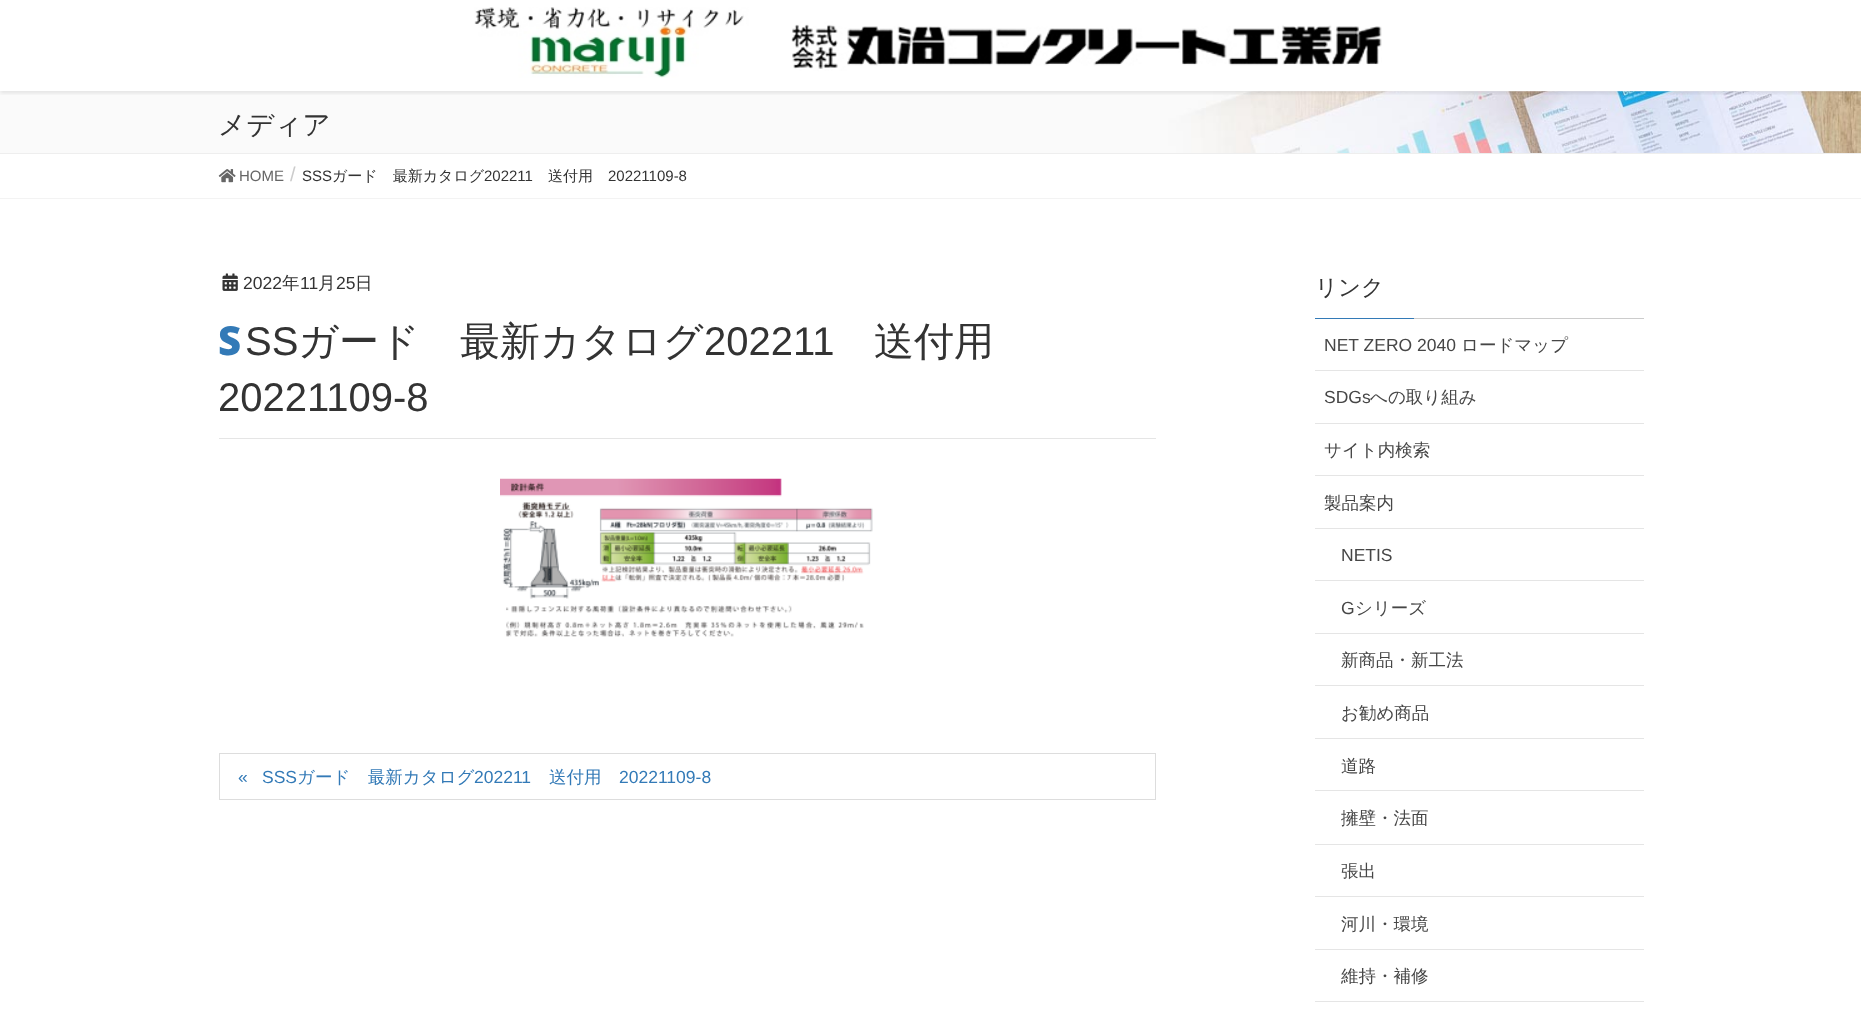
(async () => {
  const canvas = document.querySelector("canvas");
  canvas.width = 1861;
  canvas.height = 1016;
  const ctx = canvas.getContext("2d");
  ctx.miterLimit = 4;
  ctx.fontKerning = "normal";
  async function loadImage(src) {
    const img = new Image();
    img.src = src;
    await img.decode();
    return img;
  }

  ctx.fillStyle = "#ffffff";
  ctx.fillRect(0, 0, 1861, 1016);
  ctx.drawImage(await loadImage("img/2.png"), 0, 91, 1861, 62);
  ctx.save();
  ctx.beginPath();
  ctx.rect(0, 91, 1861, 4);
  ctx.clip();
  ctx.fillStyle = "rgba(0, 0, 0, 0.1)";
  ctx.filter = "blur(2px)";
  ctx.beginPath();
  ctx.rect(0, 1, 1861, 92);
  ctx.fill();
  ctx.filter = "none";
  ctx.restore();
  ctx.drawImage(await loadImage("img/1.png"), 474, 7, 908, 71);
  ctx.fillStyle = "#eeeeee";
  ctx.fillRect(0, 153, 1861, 1);
  ctx.fillStyle = "#f3f3f3";
  ctx.fillRect(0, 198, 1861, 1);
  ctx.drawImage(await loadImage("img/3.png"), 218, 169, 18, 14);
  ctx.fillStyle = "#e5e5e5";
  ctx.fillRect(219, 438, 937, 1);
  ctx.drawImage(await loadImage("img/4.png"), 222, 273, 16, 18);
  ctx.drawImage(await loadImage("img/5.png"), 500, 478, 373, 159);
  ctx.strokeStyle = "#dddddd";
  ctx.strokeRect(219.5, 753.5, 936, 46);
  for (const [x, y, w, h, color] of [
    [1414, 318, 230, 1, "#cccccc"],
    [1315, 318, 99, 1, "#337ab7"],
    [1315, 370, 329, 1, "#e5e5e5"],
    [1315, 423, 329, 1, "#e5e5e5"],
    [1315, 475, 329, 1, "#e5e5e5"],
    [1315, 528, 329, 1, "#e5e5e5"],
    [1315, 580, 329, 1, "#e5e5e5"],
    [1315, 633, 329, 1, "#e5e5e5"],
    [1315, 685, 329, 1, "#e5e5e5"],
    [1315, 738, 329, 1, "#e5e5e5"],
    [1315, 790, 329, 1, "#e5e5e5"],
    [1315, 844, 329, 1, "#e5e5e5"],
    [1315, 896, 329, 1, "#e5e5e5"],
    [1315, 949, 329, 1, "#e5e5e5"],
    [1315, 1001, 329, 1, "#e5e5e5"],
  ]) {
    ctx.fillStyle = color;
    ctx.fillRect(x, y, w, h);
  }
  ctx.font = "500 27.5px WenQuanYi Zen Hei";
  ctx.fillStyle = "#333333";
  ctx.fillText("メディア", 218, 134);
  ctx.font = "15px Liberation Sans";
  ctx.fillStyle = "#666666";
  ctx.fillText("HOME", 239, 181);
  ctx.font = "20px Liberation Sans";
  ctx.fillStyle = "#cccccc";
  ctx.fillText("/", 290, 181);
  ctx.font = "15px Liberation Sans";
  ctx.fillStyle = "#333333";
  ctx.fillText("SSS", 302, 181);
  ctx.font = "500 15px WenQuanYi Zen Hei";
  ctx.fillText("ガード　最新カタログ", 332, 181);
  ctx.font = "15px Liberation Sans";
  ctx.fillText("202211", 484, 181);
  ctx.font = "500 15px WenQuanYi Zen Hei";
  ctx.fillText("送付用", 548, 181);
  ctx.font = "15px Liberation Sans";
  ctx.fillText("20221109-8", 608, 181);
  ctx.font = "17.5px Liberation Sans";
  ctx.fillText("2022", 243, 289);
  ctx.font = "500 17.5px WenQuanYi Zen Hei";
  ctx.fillText("年", 282, 289);
  ctx.font = "17.5px Liberation Sans";
  ctx.fillText("11", 300, 289);
  ctx.font = "500 17.5px WenQuanYi Zen Hei";
  ctx.fillText("月", 318, 289);
  ctx.font = "17.5px Liberation Sans";
  ctx.fillText("25", 336, 289);
  ctx.font = "500 17.5px WenQuanYi Zen Hei";
  ctx.fillText("日", 355, 289);
  ctx.font = "900 40px Noto Sans";
  ctx.fillStyle = "#337ab7";
  ctx.fillText("S", 218, 355);
  ctx.font = "40px Liberation Sans";
  ctx.fillStyle = "#333333";
  ctx.fillText("SS", 245, 355);
  ctx.font = "500 40px WenQuanYi Zen Hei";
  ctx.fillText("ガード　最新カタログ", 298, 355);
  ctx.font = "40px Liberation Sans";
  ctx.fillText("202211", 704, 355);
  ctx.font = "500 40px WenQuanYi Zen Hei";
  ctx.fillText("送付用", 874, 355);
  ctx.font = "40px Liberation Sans";
  ctx.fillText("20221109-8", 218, 411);
  ctx.font = "17.5px Liberation Sans";
  ctx.fillStyle = "#337ab7";
  ctx.fillText("«", 238, 783);
  ctx.fillText("SSS", 262, 783);
  ctx.font = "500 17.5px WenQuanYi Zen Hei";
  ctx.fillText("ガード　最新カタログ", 297, 783);
  ctx.font = "17.5px Liberation Sans";
  ctx.fillText("202211", 474, 783);
  ctx.font = "500 17.5px WenQuanYi Zen Hei";
  ctx.fillText("送付用", 549, 783);
  ctx.font = "17.5px Liberation Sans";
  ctx.fillText("20221109-8", 619, 783);
  ctx.font = "500 22.5px WenQuanYi Zen Hei";
  ctx.fillStyle = "#333333";
  ctx.fillText("リンク", 1315, 295);
  ctx.font = "17.5px Liberation Sans";
  ctx.fillStyle = "#464646";
  ctx.fillText("NET ZERO 2040", 1324, 351);
  ctx.font = "500 17.5px WenQuanYi Zen Hei";
  ctx.fillText("ロードマップ", 1461, 351);
  ctx.font = "17.5px Liberation Sans";
  ctx.fillText("SDGs", 1324, 403);
  ctx.font = "500 17.5px WenQuanYi Zen Hei";
  for (const [text, x, y] of [
    ["への取り組み", 1370, 403],
    ["サイト内検索", 1324, 456],
    ["製品案内", 1324, 509],
  ]) {
    ctx.fillText(text, x, y);
  }
  ctx.font = "17.5px Liberation Sans";
  ctx.fillText("NETIS", 1341, 561);
  ctx.fillText("G", 1341, 614);
  ctx.font = "500 17.5px WenQuanYi Zen Hei";
  for (const [text, x, y] of [
    ["シリーズ", 1355, 614],
    ["新商品・新工法", 1341, 666],
    ["お勧め商品", 1341, 719],
    ["道路", 1341, 772],
    ["擁壁・法面", 1341, 824],
    ["張出", 1341, 877],
    ["河川・環境", 1341, 930],
    ["維持・補修", 1341, 982],
  ]) {
    ctx.fillText(text, x, y);
  }
})();
